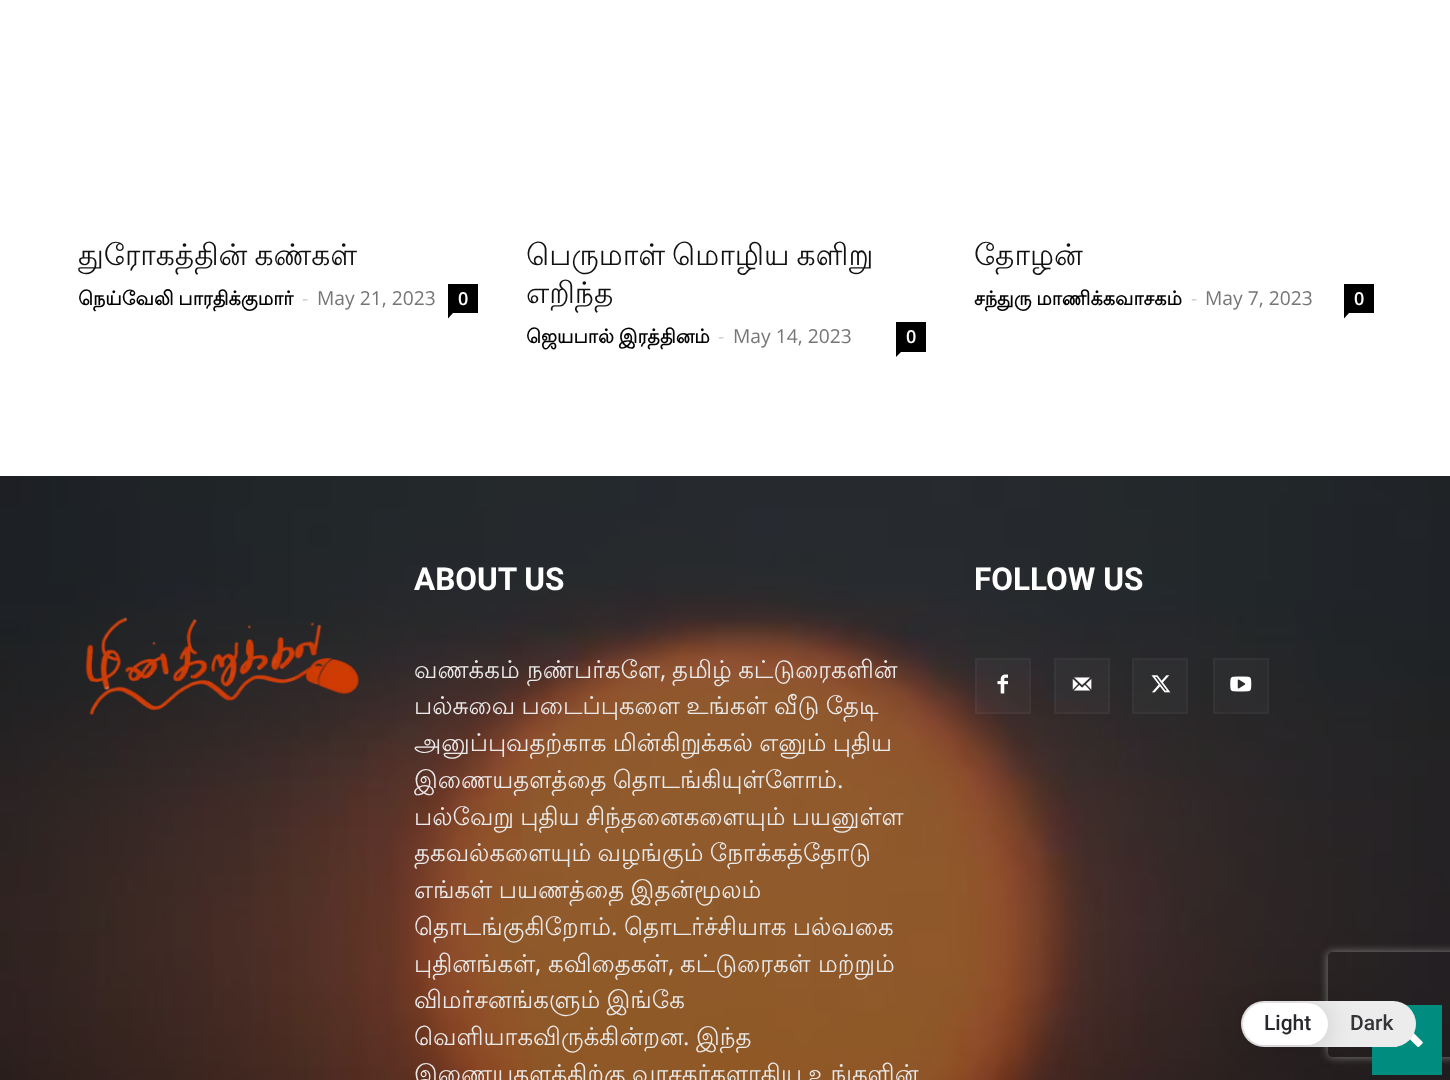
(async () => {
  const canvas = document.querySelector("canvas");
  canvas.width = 1450;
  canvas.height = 1080;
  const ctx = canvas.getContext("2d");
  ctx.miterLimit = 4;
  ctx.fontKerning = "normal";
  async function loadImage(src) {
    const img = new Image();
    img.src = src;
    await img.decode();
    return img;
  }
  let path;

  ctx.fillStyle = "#ffffff";
  ctx.fillRect(0, 0, 1450, 1080);
  ctx.fillStyle = "#000000";
  ctx.fillRect(448, 284, 30, 29);
  path = new Path2D("M448 313H453L448 318.5Z");
  ctx.fill(path);
  ctx.fillRect(896, 322, 30, 30);
  path = new Path2D("M896 352H901L896 357Z");
  ctx.fill(path);
  ctx.fillRect(1344, 284, 30, 29);
  path = new Path2D("M1344 313H1349L1344 318.5Z");
  ctx.fill(path);
  ctx.fillStyle = "#222222";
  ctx.fillRect(0, 476, 1450, 604);
  ctx.drawImage(await loadImage("img/1.png"), 0, 476, 1450, 604);
  ctx.fillStyle = "rgba(255, 255, 255, 0.03)";
  ctx.fillRect(975, 658, 56, 56);
  ctx.drawImage(await loadImage("img/2.png"), 997, 674, 11, 20);
  ctx.strokeStyle = "rgba(255, 255, 255, 0.03)";
  ctx.lineWidth = 2;
  ctx.strokeRect(976, 659, 54, 54);
  ctx.fillRect(1054, 658, 56, 56);
  ctx.drawImage(await loadImage("img/3.png"), 1072, 677, 20, 14);
  ctx.strokeRect(1055, 659, 54, 54);
  ctx.fillRect(1132, 658, 56, 56);
  ctx.drawImage(await loadImage("img/4.png"), 1151, 675, 20, 18);
  ctx.strokeRect(1133, 659, 54, 54);
  ctx.fillRect(1213, 658, 56, 56);
  ctx.drawImage(await loadImage("img/5.png"), 1230, 676, 22, 16);
  ctx.strokeRect(1214, 659, 54, 54);
  ctx.drawImage(await loadImage("img/6.png"), 85, 617, 275, 98);
  ctx.save();
  path = new Path2D("M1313 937H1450V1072H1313ZM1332 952H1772C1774 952 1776 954 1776 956V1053C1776 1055 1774 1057 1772 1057H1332C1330 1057 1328 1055 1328 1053V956C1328 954 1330 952 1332 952Z");
  ctx.clip(path, "evenodd");
  ctx.fillStyle = "#808080";
  ctx.filter = "blur(4.5px)";
  ctx.beginPath();
  ctx.roundRect(1328, 952, 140, 105, 4);
  ctx.fill();
  ctx.filter = "none";
  ctx.restore();
  ctx.fillStyle = "#008d7f";
  ctx.fillRect(1372, 1005, 70, 70);
  ctx.drawImage(await loadImage("img/7.png"), 1394, 1033, 29, 14);
  ctx.fillStyle = "#ececec";
  ctx.beginPath();
  ctx.roundRect(1241, 1001, 175, 46, 23);
  ctx.fill();
  ctx.fillStyle = "rgba(0, 0, 0, 0.15)";
  ctx.filter = "blur(13px)";
  ctx.beginPath();
  ctx.roundRect(1243, 1006, 85, 42, 21);
  ctx.fill();
  ctx.filter = "none";
  ctx.fillStyle = "#ffffff";
  ctx.beginPath();
  ctx.roundRect(1243, 1003, 85, 42, 21);
  ctx.fill();
  ctx.wordSpacing = "-2px";
  ctx.font = "29.75px Lohit Tamil";
  ctx.fillStyle = "#111111";
  ctx.fillText("துரோகத்தின் கண்கள்", 78, 265);
  ctx.wordSpacing = "-1px";
  ctx.font = "bold 19.25px Lohit Tamil";
  ctx.fillStyle = "#000000";
  ctx.fillText("நெய்வேலி பாரதிக்குமார்", 78, 305);
  ctx.wordSpacing = "0px";
  ctx.font = "19.25px Open Sans";
  ctx.fillStyle = "#cccccc";
  ctx.fillText("-", 302, 305);
  ctx.fillStyle = "#767676";
  ctx.fillText("May 21, 2023", 317, 305);
  ctx.font = "600 18px Open Sans";
  ctx.fillStyle = "#ffffff";
  ctx.fillText("0", 458, 305);
  ctx.wordSpacing = "-2px";
  ctx.font = "29.75px Lohit Tamil";
  ctx.fillStyle = "#111111";
  ctx.fillText("பெருமாள் மொழிய களிறு", 526, 265);
  ctx.wordSpacing = "0px";
  ctx.fillText("எறிந்த", 526, 303);
  ctx.wordSpacing = "-1px";
  ctx.font = "bold 19.25px Lohit Tamil";
  ctx.fillStyle = "#000000";
  ctx.fillText("ஜெயபால் இரத்தினம்", 526, 343);
  ctx.wordSpacing = "0px";
  ctx.font = "19.25px Open Sans";
  ctx.fillStyle = "#cccccc";
  ctx.fillText("-", 718, 343);
  ctx.fillStyle = "#767676";
  ctx.fillText("May 14, 2023", 733, 343);
  ctx.font = "600 18px Open Sans";
  ctx.fillStyle = "#ffffff";
  ctx.fillText("0", 906, 343);
  ctx.font = "29.75px Lohit Tamil";
  ctx.fillStyle = "#111111";
  ctx.fillText("தோழன்", 974, 265);
  ctx.wordSpacing = "-1px";
  ctx.font = "bold 19.25px Lohit Tamil";
  ctx.fillStyle = "#000000";
  ctx.fillText("சந்துரு மாணிக்கவாசகம்", 974, 305);
  ctx.wordSpacing = "0px";
  ctx.font = "19.25px Open Sans";
  ctx.fillStyle = "#cccccc";
  ctx.fillText("-", 1191, 305);
  ctx.fillStyle = "#767676";
  ctx.fillText("May 7, 2023", 1205, 305);
  ctx.font = "600 18px Open Sans";
  ctx.fillStyle = "#ffffff";
  ctx.fillText("0", 1354, 305);
  ctx.font = "bold 31.5px Roboto";
  ctx.fillText("ABOUT US", 414, 590);
  ctx.font = "24.5px Lohit Tamil";
  ctx.fillStyle = "#eaeaea";
  ctx.fillText("வணக்கம் நண்பர்களே", 414, 678);
  ctx.font = "24.5px Open Sans";
  ctx.fillText(",", 660, 678);
  ctx.wordSpacing = "-1px";
  ctx.font = "24.5px Lohit Tamil";
  for (const [text, x, y] of [
    ["தமிழ் கட்டுரைகளின்", 672, 678],
    ["பல்சுவை படைப்புகளை உங்கள் வீடு தேடி", 414, 714],
    ["அனுப்புவதற்காக மின்கிறுக்கல் எனும் புதிய", 414, 751],
    ["இணையதளத்தை தொடங்கியுள்ளோம்", 414, 788],
  ]) {
    ctx.fillText(text, x, y);
  }
  ctx.wordSpacing = "0px";
  ctx.font = "24.5px Open Sans";
  ctx.fillText(".", 837, 788);
  ctx.wordSpacing = "-1px";
  ctx.font = "24.5px Lohit Tamil";
  for (const [text, x, y] of [
    ["பல்வேறு புதிய சிந்தனைகளையும் பயனுள்ள", 414, 825],
    ["தகவல்களையும் வழங்கும் நோக்கத்தோடு", 414, 861],
    ["எங்கள் பயணத்தை இதன்மூலம்", 414, 898],
  ]) {
    ctx.fillText(text, x, y);
  }
  ctx.wordSpacing = "0px";
  ctx.fillText("தொடங்குகிறோம்", 414, 935);
  ctx.font = "24.5px Open Sans";
  ctx.fillText(".", 611, 935);
  ctx.wordSpacing = "-1px";
  ctx.font = "24.5px Lohit Tamil";
  ctx.fillText("தொடர்ச்சியாக பல்வகை", 624, 935);
  ctx.wordSpacing = "0px";
  ctx.fillText("புதினங்கள்", 414, 972);
  ctx.font = "24.5px Open Sans";
  ctx.fillText(",", 535, 972);
  ctx.font = "24.5px Lohit Tamil";
  ctx.fillText("கவிதைகள்", 548, 972);
  ctx.font = "24.5px Open Sans";
  ctx.fillText(",", 668, 972);
  ctx.font = "24.5px Lohit Tamil";
  ctx.fillText("கட்டுரைகள் மற்றும்", 680, 972);
  ctx.wordSpacing = "-1px";
  ctx.fillText("விமர்சனங்களும் இங்கே", 414, 1008);
  ctx.wordSpacing = "0px";
  ctx.fillText("வெளியாகவிருக்கின்றன", 414, 1045);
  ctx.font = "24.5px Open Sans";
  ctx.fillText(".", 683, 1045);
  ctx.font = "24.5px Lohit Tamil";
  ctx.fillText("இந்த", 696, 1045);
  ctx.wordSpacing = "-1px";
  ctx.fillText("இணையதளத்திற்கு வாசகர்களாகிய உங்களின்", 414, 1082);
  ctx.wordSpacing = "0px";
  ctx.font = "bold 31.5px Roboto";
  ctx.fillStyle = "#ffffff";
  ctx.fillText("FOLLOW US", 974, 590);
  ctx.font = "500 21px Roboto";
  ctx.fillStyle = "#27272c";
  ctx.fillText("Light", 1264, 1030);
  ctx.fillStyle = "#333338";
  ctx.fillText("Dark", 1350, 1030);
})();
